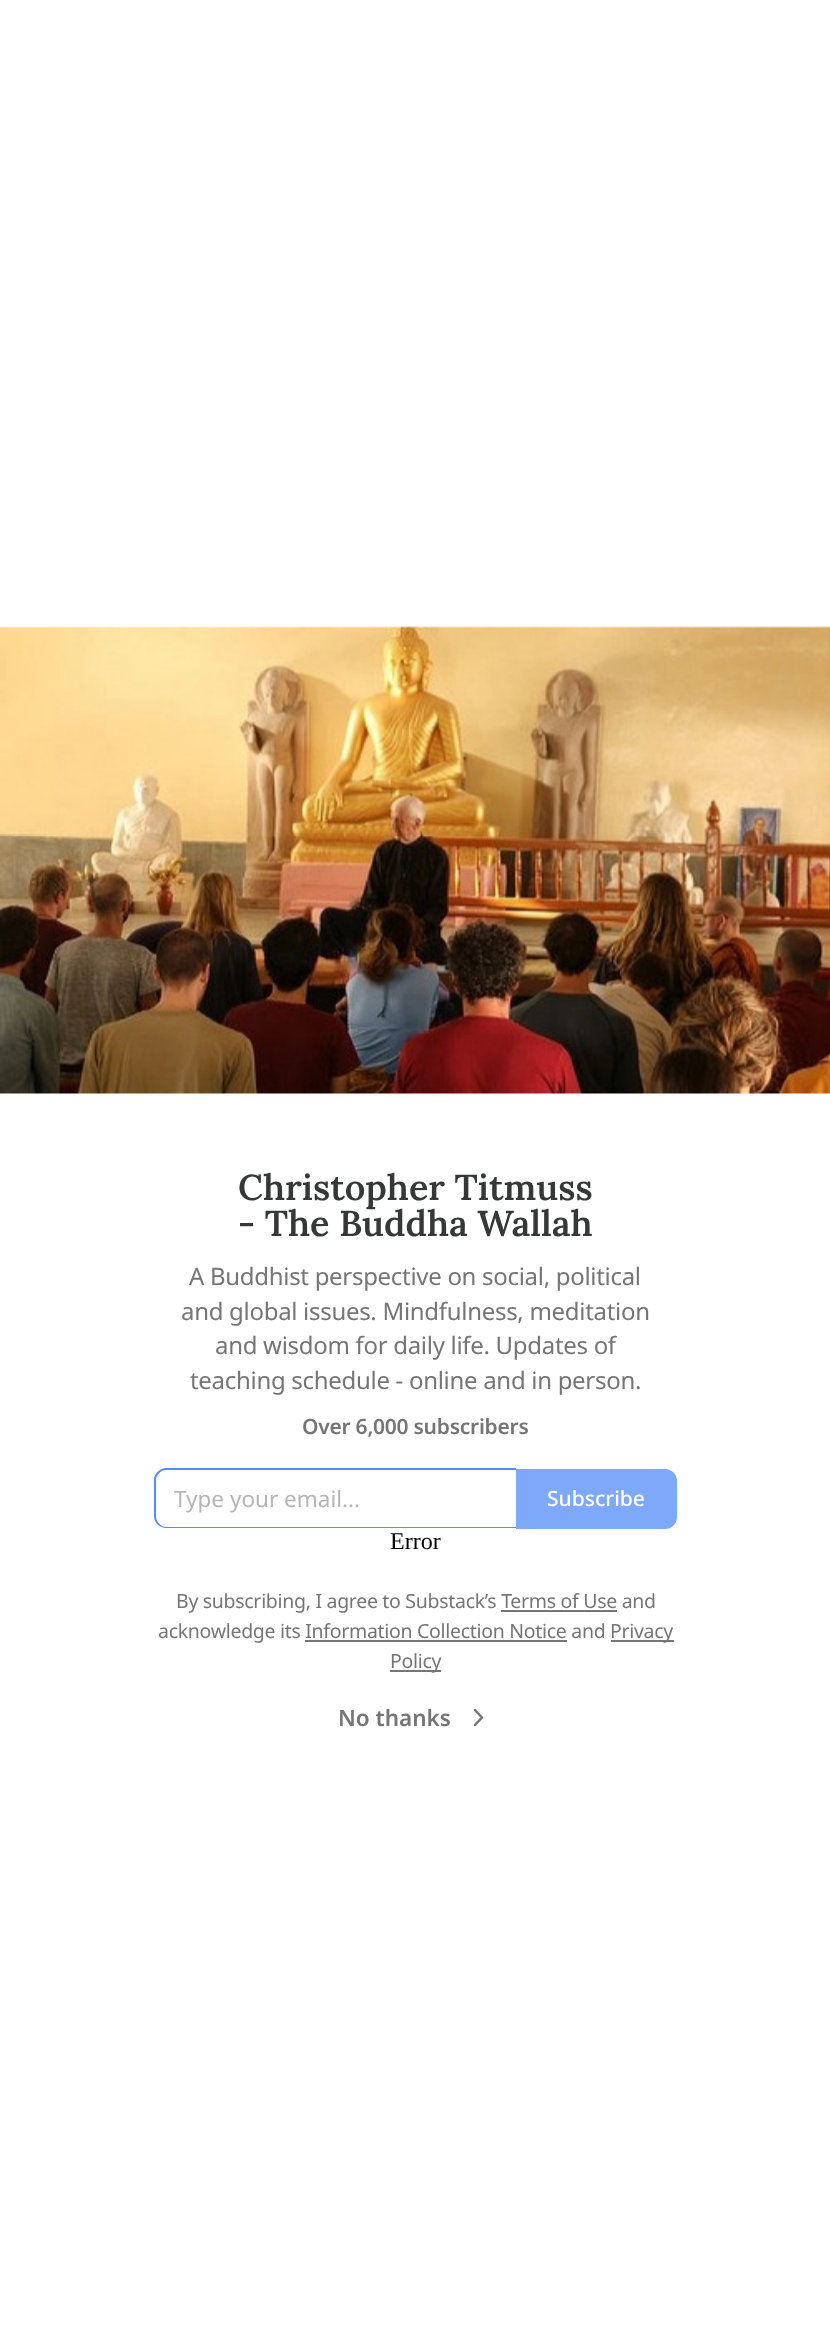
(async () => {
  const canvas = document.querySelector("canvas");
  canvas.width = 830;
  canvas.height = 2327;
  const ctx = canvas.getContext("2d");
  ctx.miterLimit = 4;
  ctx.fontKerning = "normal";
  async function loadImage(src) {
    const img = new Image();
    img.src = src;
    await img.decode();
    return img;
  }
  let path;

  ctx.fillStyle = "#ffffff";
  ctx.fillRect(0, 0, 830, 2327);
  ctx.drawImage(await loadImage("img/1.png"), 0, 626, 830, 468);
  ctx.fillStyle = "#538cfa";
  path = new Path2D("M166 1468H516V1528H166C160 1528 154 1523 154 1516V1480C154 1474 160 1468 166 1468ZM166 1470H516V1527H166C161 1527 156 1522 156 1516V1480C156 1475 161 1470 166 1470Z");
  ctx.fill(path, "evenodd");
  ctx.fillStyle = "#7ea9fb";
  ctx.beginPath();
  ctx.roundRect(517, 1470, 159, 58, [0, 11, 11, 0]);
  ctx.fill();
  ctx.strokeStyle = "#7ea9fb";
  ctx.lineWidth = 2;
  ctx.stroke();
  for (const [x, y, w, h, color] of [
    [501, 1610, 116, 2, "#757575"],
    [611, 1640, 63, 2, "#757575"],
    [305, 1640, 262, 2, "#757575"],
    [390, 1670, 51, 2, "#757575"],
  ]) {
    ctx.fillStyle = color;
    ctx.fillRect(x, y, w, h);
  }
  path = new Path2D("M475 1725L482 1717.5L475 1710");
  ctx.strokeStyle = "#757575";
  ctx.lineWidth = 2.5;
  ctx.lineCap = "round";
  ctx.lineJoin = "round";
  ctx.stroke(path);
  ctx.font = "600 36px Lora";
  ctx.fillStyle = "#363737";
  ctx.fillText("Christopher Titmuss", 238, 1200);
  ctx.fillText("- The Buddha Wallah", 238, 1236);
  ctx.letterSpacing = "-0.3px";
  ctx.font = "24px Noto Sans";
  ctx.fillStyle = "#757575";
  for (const [text, x, y] of [
    ["A Buddhist perspective on social, political", 189, 1285],
    ["and global issues. Mindfulness, meditation", 181, 1320],
    ["and wisdom for daily life. Updates of", 215, 1354],
    ["teaching schedule - online and in person.", 190, 1389],
  ]) {
    ctx.fillText(text, x, y);
  }
  ctx.letterSpacing = "-0.25px";
  ctx.font = "600 21px Noto Sans";
  ctx.fillText("Over 6,000 subscribers", 302, 1434);
  ctx.letterSpacing = "0px";
  ctx.font = "22.5px Noto Sans";
  ctx.fillStyle = "#b6b6b6";
  ctx.fillText("Type your email...", 174, 1507);
  ctx.font = "500 21px Noto Sans";
  ctx.fillStyle = "#ffffff";
  ctx.fillText("Subscribe", 547, 1506);
  ctx.font = "24px Liberation Serif";
  ctx.fillStyle = "#000000";
  ctx.fillText("Error", 390, 1549);
  ctx.letterSpacing = "-0.3px";
  ctx.font = "19.5px Noto Sans";
  ctx.fillStyle = "#757575";
  for (const [text, x, y] of [
    ["By subscribing, I agree to Substack’s Terms of Use and", 176, 1608],
    ["acknowledge its Information Collection Notice and", 158, 1638],
    ["Privacy", 610, 1638],
    ["Policy", 390, 1668],
  ]) {
    ctx.fillText(text, x, y);
  }
  ctx.letterSpacing = "0px";
  ctx.font = "600 22.5px Noto Sans";
  ctx.fillText("No thanks", 338, 1726);
})();
